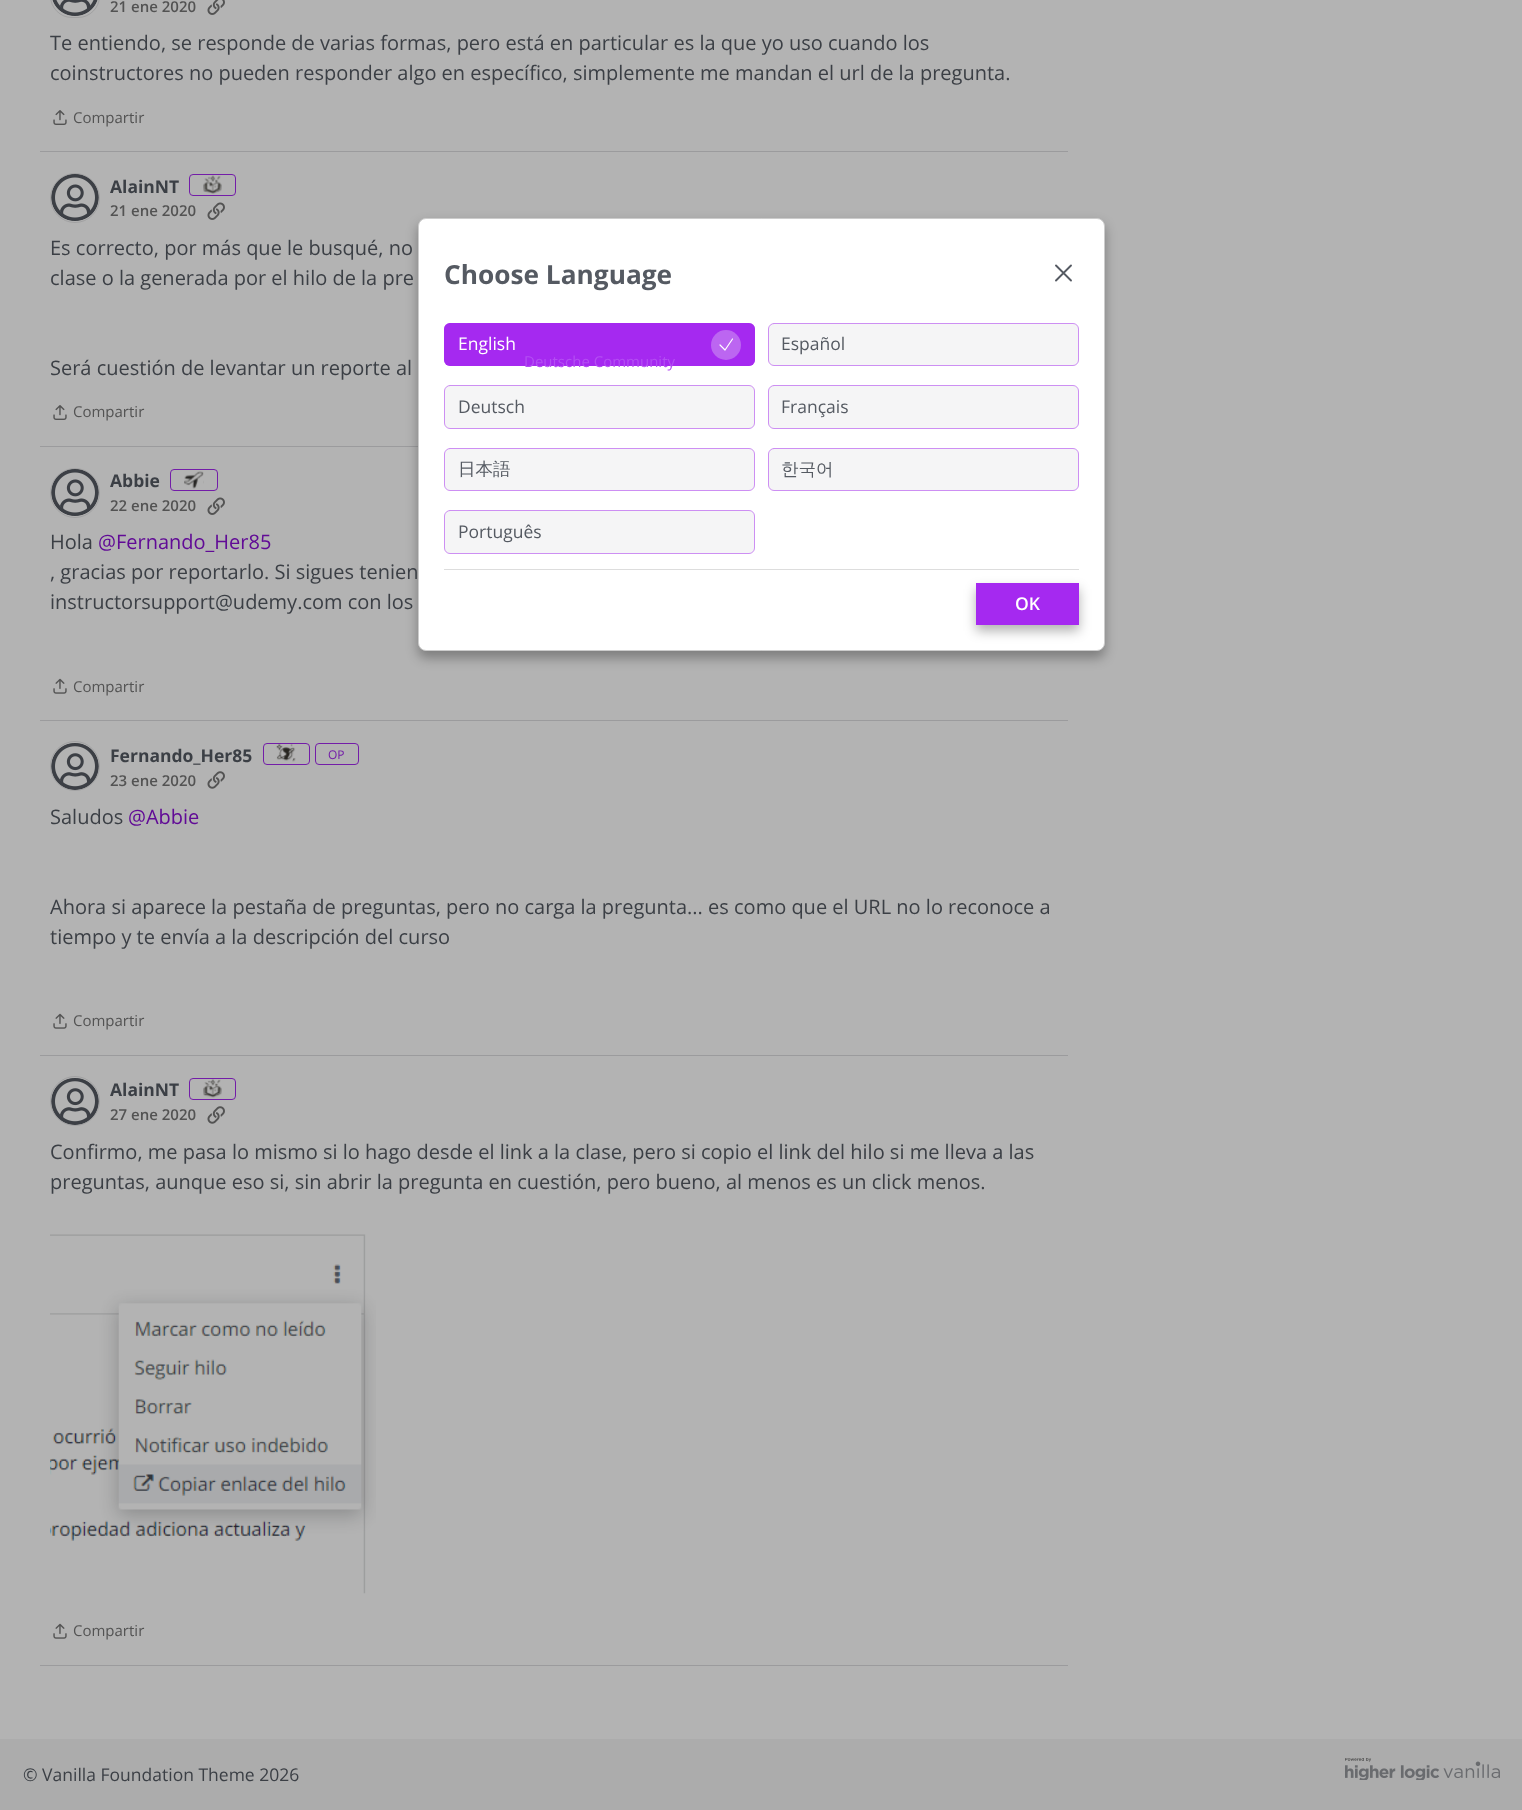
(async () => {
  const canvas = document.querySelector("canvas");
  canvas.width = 1522;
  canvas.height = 1810;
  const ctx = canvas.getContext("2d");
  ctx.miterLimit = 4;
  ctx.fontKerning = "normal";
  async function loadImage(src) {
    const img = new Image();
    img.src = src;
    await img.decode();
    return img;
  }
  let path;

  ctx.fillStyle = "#b3b3b3";
  ctx.fillRect(0, 0, 1522, 1810);
  ctx.beginPath();
  ctx.roundRect(50.5, -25.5, 49, 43, 24.5);
  ctx.strokeStyle = "#a1a1a2";
  ctx.stroke();
  ctx.drawImage(await loadImage("img/1.png"), 52, 0, 46, 16);
  ctx.drawImage(await loadImage("img/2.png"), 207, 0, 18, 15);
  ctx.drawImage(await loadImage("img/3.png"), 53, 110, 14, 15);
  ctx.fillStyle = "#9b9b9d";
  ctx.fillRect(40, 151, 1028, 1);
  ctx.beginPath();
  ctx.arc(75, 198, 24.5, 0, Math.PI * 2);
  ctx.stroke();
  ctx.drawImage(await loadImage("img/4.png"), 51, 174, 48, 47);
  ctx.beginPath();
  ctx.roundRect(189.5, 174.5, 46, 21, 3.5);
  ctx.strokeStyle = "#731da8";
  ctx.stroke();
  ctx.drawImage(await loadImage("img/5.png"), 203, 175, 19, 19);
  ctx.drawImage(await loadImage("img/6.png"), 207, 202, 18, 18);
  ctx.drawImage(await loadImage("img/3.png"), 53, 405, 14, 15);
  ctx.fillRect(40, 446, 378, 1);
  ctx.beginPath();
  ctx.arc(75, 493, 24.5, 0, Math.PI * 2);
  ctx.strokeStyle = "#a1a1a2";
  ctx.stroke();
  ctx.drawImage(await loadImage("img/4.png"), 51, 469, 48, 47);
  ctx.beginPath();
  ctx.roundRect(170.5, 469.5, 47, 21, 3.5);
  ctx.strokeStyle = "#731da8";
  ctx.stroke();
  ctx.drawImage(await loadImage("img/7.png"), 184, 471, 20, 18);
  ctx.drawImage(await loadImage("img/6.png"), 207, 497, 18, 18);
  ctx.drawImage(await loadImage("img/8.png"), 53, 678, 14, 16);
  ctx.fillRect(40, 720, 1028, 1);
  ctx.beginPath();
  ctx.arc(75, 766, 24.5, 0, Math.PI * 2);
  ctx.strokeStyle = "#a1a1a2";
  ctx.stroke();
  ctx.drawImage(await loadImage("img/9.png"), 51, 743, 48, 47);
  ctx.beginPath();
  ctx.roundRect(263.5, 743.5, 46, 21, 3.5);
  ctx.strokeStyle = "#731da8";
  ctx.stroke();
  ctx.drawImage(await loadImage("img/10.png"), 276, 743, 20, 19);
  ctx.beginPath();
  ctx.roundRect(315.5, 743.5, 43, 21, 3.5);
  ctx.stroke();
  ctx.drawImage(await loadImage("img/11.png"), 207, 771, 18, 18);
  ctx.drawImage(await loadImage("img/8.png"), 53, 1013, 14, 16);
  ctx.fillRect(40, 1055, 1028, 1);
  ctx.beginPath();
  ctx.arc(75, 1101, 24.5, 0, Math.PI * 2);
  ctx.strokeStyle = "#a1a1a2";
  ctx.stroke();
  ctx.drawImage(await loadImage("img/9.png"), 51, 1078, 48, 47);
  ctx.beginPath();
  ctx.roundRect(189.5, 1078.5, 46, 21, 3.5);
  ctx.strokeStyle = "#731da8";
  ctx.stroke();
  ctx.drawImage(await loadImage("img/12.png"), 203, 1079, 19, 19);
  ctx.drawImage(await loadImage("img/11.png"), 207, 1106, 18, 18);
  ctx.drawImage(await loadImage("img/13.png"), 50, 1234, 326, 360);
  ctx.drawImage(await loadImage("img/8.png"), 53, 1623, 14, 16);
  ctx.fillRect(40, 1665, 1028, 1);
  ctx.fillStyle = "rgba(0, 0, 0, 0.3)";
  ctx.filter = "blur(6px)";
  ctx.beginPath();
  ctx.roundRect(418, 224, 687, 434, 8);
  ctx.fill();
  ctx.filter = "none";
  ctx.fillStyle = "#ffffff";
  ctx.beginPath();
  ctx.roundRect(418.5, 218.5, 686, 432, 7.5);
  ctx.fill();
  ctx.strokeStyle = "#cccccc";
  ctx.stroke();
  path = new Path2D("M1056 280.5L1071 265.5M1056 265.5L1071 280.5");
  ctx.strokeStyle = "#555a62";
  ctx.lineWidth = 1.9;
  ctx.lineCap = "round";
  ctx.lineJoin = "round";
  ctx.stroke(path);
  ctx.fillStyle = "#a529f0";
  ctx.beginPath();
  ctx.roundRect(444, 323, 311, 43, 6);
  ctx.fill();
  ctx.beginPath();
  ctx.roundRect(444.5, 323.5, 310, 42, 5.5);
  ctx.strokeStyle = "rgba(165, 41, 240, 0.5)";
  ctx.lineWidth = 1;
  ctx.lineJoin = "miter";
  ctx.stroke();
  ctx.fillStyle = "#bc66f1";
  ctx.beginPath();
  ctx.arc(726, 345, 15, 0, Math.PI * 2);
  ctx.fill();
  path = new Path2D("M720 345L725 350L732.5 339");
  ctx.strokeStyle = "#ffffff";
  ctx.lineWidth = 1.2;
  ctx.lineJoin = "round";
  ctx.stroke(path);
  ctx.fillStyle = "#f5f5f6";
  ctx.beginPath();
  ctx.roundRect(768.5, 323.5, 310, 42, 5.5);
  ctx.fill();
  ctx.strokeStyle = "#cd8ff3";
  ctx.lineWidth = 1;
  ctx.lineJoin = "miter";
  ctx.stroke();
  ctx.beginPath();
  ctx.roundRect(444.5, 385.5, 310, 43, 5.5);
  ctx.fill();
  ctx.stroke();
  ctx.beginPath();
  ctx.roundRect(768.5, 385.5, 310, 43, 5.5);
  ctx.fill();
  ctx.stroke();
  ctx.beginPath();
  ctx.roundRect(444.5, 448.5, 310, 42, 5.5);
  ctx.fill();
  ctx.stroke();
  ctx.beginPath();
  ctx.roundRect(768.5, 448.5, 310, 42, 5.5);
  ctx.fill();
  ctx.stroke();
  ctx.beginPath();
  ctx.roundRect(444.5, 510.5, 310, 43, 5.5);
  ctx.fill();
  ctx.stroke();
  ctx.fillStyle = "#dddddd";
  ctx.fillRect(444, 569, 635, 1);
  ctx.fillStyle = "rgba(0, 0, 0, 0.3)";
  ctx.filter = "blur(6px)";
  ctx.beginPath();
  ctx.rect(976, 589, 103, 42);
  ctx.fill();
  ctx.filter = "none";
  ctx.fillStyle = "#a529f0";
  ctx.fillRect(976, 583, 103, 42);
  ctx.fillStyle = "#acacac";
  ctx.fillRect(0, 1739, 1522, 71);
  ctx.drawImage(await loadImage("img/14.png"), 1345, 1758, 155, 22);
  ctx.font = "600 15px Open Sans";
  ctx.fillStyle = "#535353";
  ctx.fillText("21 ene 2020", 110, 12);
  ctx.font = "20px Open Sans";
  ctx.fillStyle = "#3b3f45";
  ctx.fillText("Te entiendo, se responde de varias formas, pero está en particular es la que yo uso cuando los", 50, 50);
  ctx.fillText("coinstructores no pueden responder algo en específico, simplemente me mandan el url de la pregunta.", 50, 80);
  ctx.font = "15px Open Sans";
  ctx.fillStyle = "#535353";
  ctx.fillText("Compartir", 73, 123);
  ctx.font = "bold 17.5px Open Sans";
  ctx.fillStyle = "#3b3f45";
  ctx.fillText("AlainNT", 110, 193);
  ctx.font = "600 15px Open Sans";
  ctx.fillStyle = "#535353";
  ctx.fillText("21 ene 2020", 110, 216);
  ctx.font = "20px Open Sans";
  ctx.fillStyle = "#3b3f45";
  for (const [text, x, y] of [
    ["Es correcto, por más que le busqué, no", 50, 255],
    ["clase o la generada por el hilo de la pre", 50, 285],
    ["Será cuestión de levantar un reporte al", 50, 375],
  ]) {
    ctx.fillText(text, x, y);
  }
  ctx.font = "15px Open Sans";
  ctx.fillStyle = "#535353";
  ctx.fillText("Compartir", 73, 417);
  ctx.font = "bold 17.5px Open Sans";
  ctx.fillStyle = "#3b3f45";
  ctx.fillText("Abbie", 110, 487);
  ctx.font = "600 15px Open Sans";
  ctx.fillStyle = "#535353";
  ctx.fillText("22 ene 2020", 110, 511);
  ctx.font = "20px Open Sans";
  ctx.fillStyle = "#3b3f45";
  ctx.fillText("Hola", 50, 549);
  ctx.fillStyle = "#610b96";
  ctx.fillText("@Fernando_Her85", 98, 549);
  ctx.fillStyle = "#3b3f45";
  ctx.fillText(", gracias por reportarlo. Si sigues tenien", 50, 579);
  ctx.fillText("instructorsupport@udemy.com con los", 50, 609);
  ctx.font = "15px Open Sans";
  ctx.fillStyle = "#535353";
  ctx.fillText("Compartir", 73, 692);
  ctx.font = "bold 17.5px Open Sans";
  ctx.fillStyle = "#3b3f45";
  ctx.fillText("Fernando_Her85", 110, 762);
  ctx.font = "12px Open Sans";
  ctx.fillStyle = "#731da8";
  ctx.fillText("OP", 328, 759);
  ctx.font = "600 15px Open Sans";
  ctx.fillStyle = "#535353";
  ctx.fillText("23 ene 2020", 110, 786);
  ctx.font = "20px Open Sans";
  ctx.fillStyle = "#3b3f45";
  ctx.fillText("Saludos", 50, 824);
  ctx.fillStyle = "#610b96";
  ctx.fillText("@Abbie", 128, 824);
  ctx.fillStyle = "#3b3f45";
  ctx.fillText("Ahora si aparece la pestaña de preguntas, pero no carga la pregunta... es como que el URL no lo reconoce a", 50, 914);
  ctx.fillText("tiempo y te envía a la descripción del curso", 50, 944);
  ctx.font = "15px Open Sans";
  ctx.fillStyle = "#535353";
  ctx.fillText("Compartir", 73, 1026);
  ctx.font = "bold 17.5px Open Sans";
  ctx.fillStyle = "#3b3f45";
  ctx.fillText("AlainNT", 110, 1096);
  ctx.font = "600 15px Open Sans";
  ctx.fillStyle = "#535353";
  ctx.fillText("27 ene 2020", 110, 1120);
  ctx.font = "20px Open Sans";
  ctx.fillStyle = "#3b3f45";
  ctx.fillText("Confirmo, me pasa lo mismo si lo hago desde el link a la clase, pero si copio el link del hilo si me lleva a las", 50, 1159);
  ctx.fillText("preguntas, aunque eso si, sin abrir la pregunta en cuestión, pero bueno, al menos es un click menos.", 50, 1189);
  ctx.font = "15px Open Sans";
  ctx.fillStyle = "#535353";
  ctx.fillText("Compartir", 73, 1636);
  ctx.font = "bold 26.25px Open Sans";
  ctx.fillStyle = "#555a62";
  ctx.fillText("Choose Language", 444, 284);
  ctx.font = "17.5px Open Sans";
  ctx.fillStyle = "#ffffff";
  ctx.fillText("English", 458, 350);
  ctx.fillStyle = "#555a62";
  ctx.fillText("Español", 781, 350);
  ctx.font = "15px Open Sans";
  ctx.fillStyle = "#b44ef3";
  ctx.fillText("Deutsche Community", 524, 367);
  ctx.font = "17.5px Open Sans";
  ctx.fillStyle = "#555a62";
  ctx.fillText("Deutsch", 458, 413);
  ctx.fillText("Français", 781, 413);
  ctx.font = "500 17.5px WenQuanYi Zen Hei";
  ctx.fillText("日本語", 458, 475);
  ctx.fillText("한국어", 781, 475);
  ctx.font = "17.5px Open Sans";
  ctx.fillText("Português", 458, 538);
  ctx.font = "600 17.5px Open Sans";
  ctx.fillStyle = "#ffffff";
  ctx.fillText("OK", 1015, 610);
  ctx.font = "17.5px Open Sans";
  ctx.fillStyle = "#3b3f45";
  ctx.fillText("© Vanilla Foundation Theme 2026", 23, 1781);
})();
